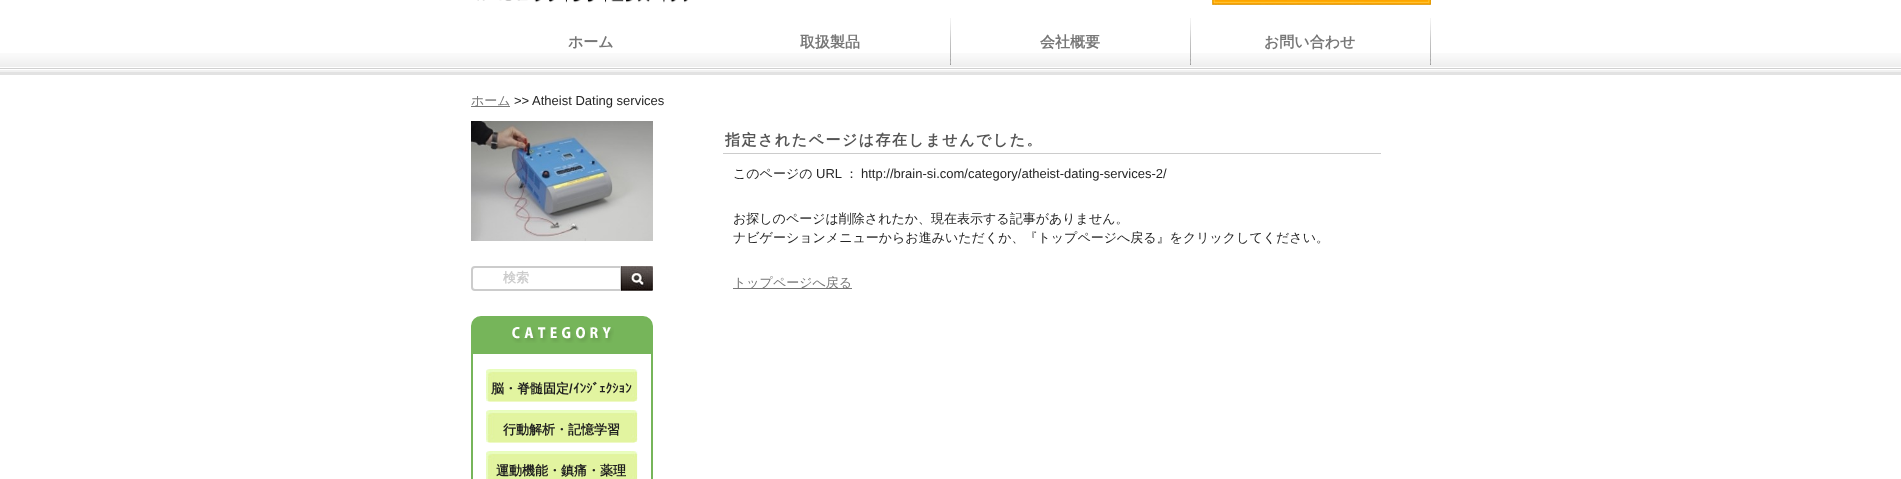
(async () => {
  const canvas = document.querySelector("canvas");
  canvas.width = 1901;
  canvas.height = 479;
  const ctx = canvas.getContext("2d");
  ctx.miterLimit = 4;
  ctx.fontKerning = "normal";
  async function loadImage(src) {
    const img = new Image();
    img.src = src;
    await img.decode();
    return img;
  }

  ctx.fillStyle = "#ffffff";
  ctx.fillRect(0, 0, 1901, 479);
  ctx.drawImage(await loadImage("img/1.png"), 0, 53, 1901, 22);
  ctx.drawImage(await loadImage("img/2.png"), 477, 0, 211, 3);
  ctx.drawImage(await loadImage("img/3.png"), 1212, 0, 219, 5);
  ctx.drawImage(await loadImage("img/4.png"), 950, 18, 1, 47);
  ctx.drawImage(await loadImage("img/4.png"), 1190, 18, 1, 47);
  ctx.drawImage(await loadImage("img/4.png"), 1430, 18, 1, 47);
  for (const [x, y, w, h, color] of [
    [471, 106, 39, 1, "#777777"],
    [723, 153, 658, 1, "#cccccc"],
    [733, 288, 119, 1, "#777777"],
  ]) {
    ctx.fillStyle = color;
    ctx.fillRect(x, y, w, h);
  }
  ctx.drawImage(await loadImage("img/5.png"), 471, 121, 182, 120);
  ctx.beginPath();
  ctx.roundRect(472, 267, 149, 23, [3, 0, 0, 3]);
  ctx.strokeStyle = "#cccccc";
  ctx.lineWidth = 2;
  ctx.stroke();
  ctx.drawImage(await loadImage("img/6.png"), 621, 266, 32, 25);
  ctx.fillStyle = "#76b55a";
  ctx.beginPath();
  ctx.roundRect(472, 317, 180, 34, [9, 9, 0, 0]);
  ctx.fill();
  ctx.strokeStyle = "#76b55a";
  ctx.stroke();
  ctx.drawImage(await loadImage("img/7.png"), 512, 327, 102, 16);
  ctx.strokeRect(472, 353, 180, 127);
  ctx.drawImage(await loadImage("img/8.png"), 486, 369, 152, 33);
  ctx.drawImage(await loadImage("img/8.png"), 486, 410, 152, 33);
  ctx.drawImage(await loadImage("img/9.png"), 486, 451, 152, 28);
  ctx.font = "bold 15px WenQuanYi Zen Hei";
  ctx.fillStyle = "#777777";
  for (const [text, x, y] of [
    ["ホーム", 568, 47],
    ["取扱製品", 800, 47],
    ["会社概要", 1040, 47],
    ["お問い合わせ", 1264, 47],
  ]) {
    ctx.fillText(text, x, y);
  }
  ctx.font = "500 13px WenQuanYi Zen Hei";
  ctx.fillText("ホーム", 471, 105);
  ctx.font = "13px Liberation Sans";
  ctx.fillStyle = "#252525";
  ctx.fillText(">> Atheist Dating services", 514, 105);
  ctx.letterSpacing = "1.5px";
  ctx.font = "bold 15px WenQuanYi Zen Hei";
  ctx.fillStyle = "#555555";
  ctx.fillText("指定されたページは存在しませんでした。", 725, 145);
  ctx.letterSpacing = "0px";
  ctx.font = "500 13px WenQuanYi Zen Hei";
  ctx.fillStyle = "#252525";
  ctx.fillText("このページの", 733, 178);
  ctx.font = "13px Liberation Sans";
  ctx.fillText("URL", 816, 178);
  ctx.font = "500 13px WenQuanYi Zen Hei";
  ctx.fillText("：", 845, 178);
  ctx.font = "13px Liberation Sans";
  ctx.fillText("http://brain-si.com/category/atheist-dating-services-2/", 861, 178);
  ctx.font = "500 13px WenQuanYi Zen Hei";
  ctx.fillText("お探しのページは削除されたか、現在表示する記事がありません。", 733, 223);
  ctx.fillText("ナビゲーションメニューからお進みいただくか、『トップページへ戻る』をクリックしてください。", 733, 242);
  ctx.fillStyle = "#777777";
  ctx.fillText("トップページへ戻る", 733, 287);
  ctx.font = "bold 13px WenQuanYi Zen Hei";
  ctx.fillStyle = "#cccccc";
  ctx.fillText("検索", 503, 282);
  ctx.fillStyle = "#1f1f1f";
  ctx.fillText("脳・脊髄固定", 491, 393);
  ctx.font = "bold 13px Liberation Sans";
  ctx.fillText("/", 569, 393);
  ctx.font = "bold 13px IPAPGothic";
  ctx.fillText("ｲﾝｼﾞｪｸｼｮﾝ", 573, 393);
  ctx.font = "bold 13px WenQuanYi Zen Hei";
  ctx.fillText("行動解析・記憶学習", 503, 434);
  ctx.fillText("運動機能・鎮痛・薬理", 496, 475);
})();
